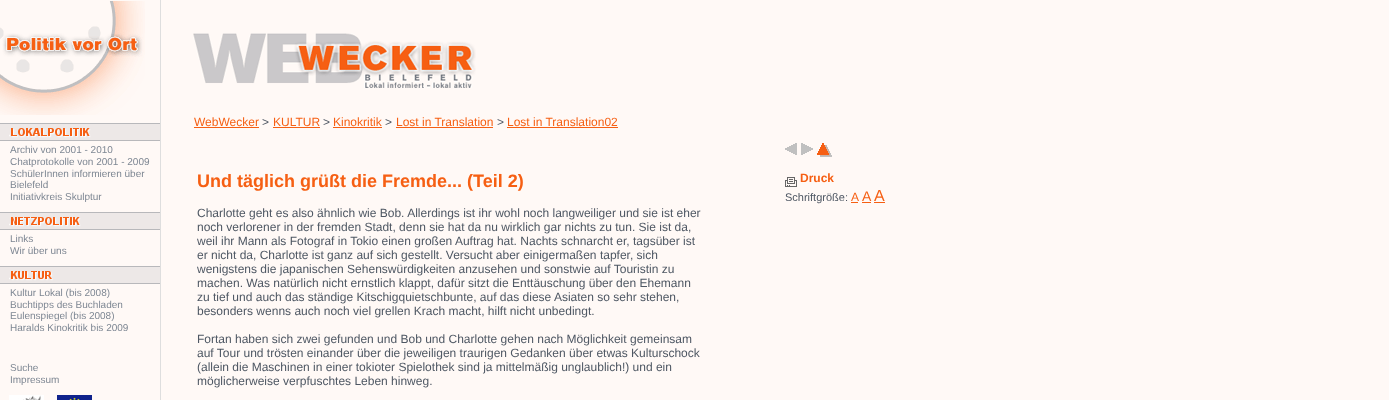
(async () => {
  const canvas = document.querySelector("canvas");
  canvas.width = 1389;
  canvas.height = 400;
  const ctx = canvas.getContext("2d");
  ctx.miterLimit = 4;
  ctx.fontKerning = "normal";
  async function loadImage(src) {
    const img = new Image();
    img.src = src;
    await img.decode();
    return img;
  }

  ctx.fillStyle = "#fff9f6";
  ctx.fillRect(0, 0, 1389, 400);
  ctx.fillStyle = "#dedede";
  ctx.fillRect(160, 0, 1, 400);
  ctx.drawImage(await loadImage("img/1.png"), 0, 1, 145, 114);
  ctx.drawImage(await loadImage("img/2.png"), 0, 123, 160, 18);
  ctx.drawImage(await loadImage("img/3.png"), 0, 212, 160, 18);
  ctx.drawImage(await loadImage("img/4.png"), 0, 266, 160, 18);
  ctx.drawImage(await loadImage("img/5.png"), 9, 395, 35, 5);
  ctx.drawImage(await loadImage("img/6.png"), 57, 395, 35, 5);
  ctx.drawImage(await loadImage("img/7.png"), 193, 33, 283, 55);
  for (const [x, y, w, h, color] of [
    [194, 127, 65, 1, "#f65f13"],
    [273, 127, 47, 1, "#f65f13"],
    [333, 127, 49, 1, "#f65f13"],
    [396, 127, 97, 1, "#f65f13"],
    [507, 127, 111, 1, "#f65f13"],
  ]) {
    ctx.fillStyle = color;
    ctx.fillRect(x, y, w, h);
  }
  ctx.drawImage(await loadImage("img/8.png"), 785, 143, 12, 12);
  ctx.drawImage(await loadImage("img/9.png"), 801, 143, 12, 12);
  ctx.drawImage(await loadImage("img/10.png"), 817, 143, 15, 14);
  ctx.drawImage(await loadImage("img/11.png"), 785, 177, 12, 10);
  for (const [x, y, w, h, color] of [
    [851, 202, 7, 1, "#f65f13"],
    [862, 202, 9, 1, "#f65f13"],
    [874, 202, 11, 1, "#f65f13"],
  ]) {
    ctx.fillStyle = color;
    ctx.fillRect(x, y, w, h);
  }
  ctx.font = "10px Liberation Sans";
  ctx.fillStyle = "#7e8793";
  for (const [text, x, y] of [
    ["Archiv von 2001 - 2010", 10, 153],
    ["Chatprotokolle von 2001 - 2009", 10, 165],
    ["SchülerInnen informieren über", 10, 177],
    ["Bielefeld", 10, 188],
    ["Initiativkreis Skulptur", 10, 200],
    ["Links", 10, 242],
    ["Wir über uns", 10, 254],
    ["Kultur Lokal (bis 2008)", 10, 296],
    ["Buchtipps des Buchladen", 10, 308],
    ["Eulenspiegel (bis 2008)", 10, 319],
    ["Haralds Kinokritik bis 2009", 10, 331],
    ["Suche", 10, 371],
    ["Impressum", 10, 383],
  ]) {
    ctx.fillText(text, x, y);
  }
  ctx.font = "12px Liberation Sans";
  ctx.fillStyle = "#f65f13";
  ctx.fillText("WebWecker", 194, 126);
  ctx.fillStyle = "#4e5763";
  ctx.fillText(">", 262, 126);
  ctx.fillStyle = "#f65f13";
  ctx.fillText("KULTUR", 273, 126);
  ctx.fillStyle = "#4e5763";
  ctx.fillText(">", 323, 126);
  ctx.fillStyle = "#f65f13";
  ctx.fillText("Kinokritik", 333, 126);
  ctx.fillStyle = "#4e5763";
  ctx.fillText(">", 385, 126);
  ctx.fillStyle = "#f65f13";
  ctx.fillText("Lost in Translation", 396, 126);
  ctx.fillStyle = "#4e5763";
  ctx.fillText(">", 497, 126);
  ctx.fillStyle = "#f65f13";
  ctx.fillText("Lost in Translation02", 507, 126);
  ctx.font = "bold 18px Liberation Sans";
  ctx.fillText("Und täglich grüßt die Fremde... (Teil 2)", 197, 187);
  ctx.font = "12px Liberation Sans";
  ctx.fillStyle = "#4e5763";
  for (const [text, x, y] of [
    ["Charlotte geht es also ähnlich wie Bob. Allerdings ist ihr wohl noch langweiliger und sie ist eher", 197, 217],
    ["noch verlorener in der fremden Stadt, denn sie hat da nu wirklich gar nichts zu tun. Sie ist da,", 197, 231],
    ["weil ihr Mann als Fotograf in Tokio einen großen Auftrag hat. Nachts schnarcht er, tagsüber ist", 197, 245],
    ["er nicht da, Charlotte ist ganz auf sich gestellt. Versucht aber einigermaßen tapfer, sich", 197, 259],
    ["wenigstens die japanischen Sehenswürdigkeiten anzusehen und sonstwie auf Touristin zu", 197, 273],
    ["machen. Was natürlich nicht ernstlich klappt, dafür sitzt die Enttäuschung über den Ehemann", 197, 287],
    ["zu tief und auch das ständige Kitschigquietschbunte, auf das diese Asiaten so sehr stehen,", 197, 301],
    ["besonders wenns auch noch viel grellen Krach macht, hilft nicht unbedingt.", 197, 315],
    ["Fortan haben sich zwei gefunden und Bob und Charlotte gehen nach Möglichkeit gemeinsam", 197, 343],
    ["auf Tour und trösten einander über die jeweiligen traurigen Gedanken über etwas Kulturschock", 197, 357],
    ["(allein die Maschinen in einer tokioter Spielothek sind ja mittelmäßig unglaublich!) und ein", 197, 371],
    ["möglicherweise verpfuschtes Leben hinweg.", 197, 385],
  ]) {
    ctx.fillText(text, x, y);
  }
  ctx.font = "bold 12px Liberation Sans";
  ctx.fillStyle = "#f65f13";
  ctx.fillText("Druck", 800, 182);
  ctx.font = "11px Liberation Sans";
  ctx.fillStyle = "#4e5763";
  ctx.fillText("Schriftgröße:", 785, 201);
  ctx.font = "12px Liberation Sans";
  ctx.fillStyle = "#f65f13";
  ctx.fillText("A", 851, 201);
  ctx.font = "14px Liberation Sans";
  ctx.fillText("A", 862, 201);
  ctx.font = "16px Liberation Sans";
  ctx.fillText("A", 874, 201);
})();
